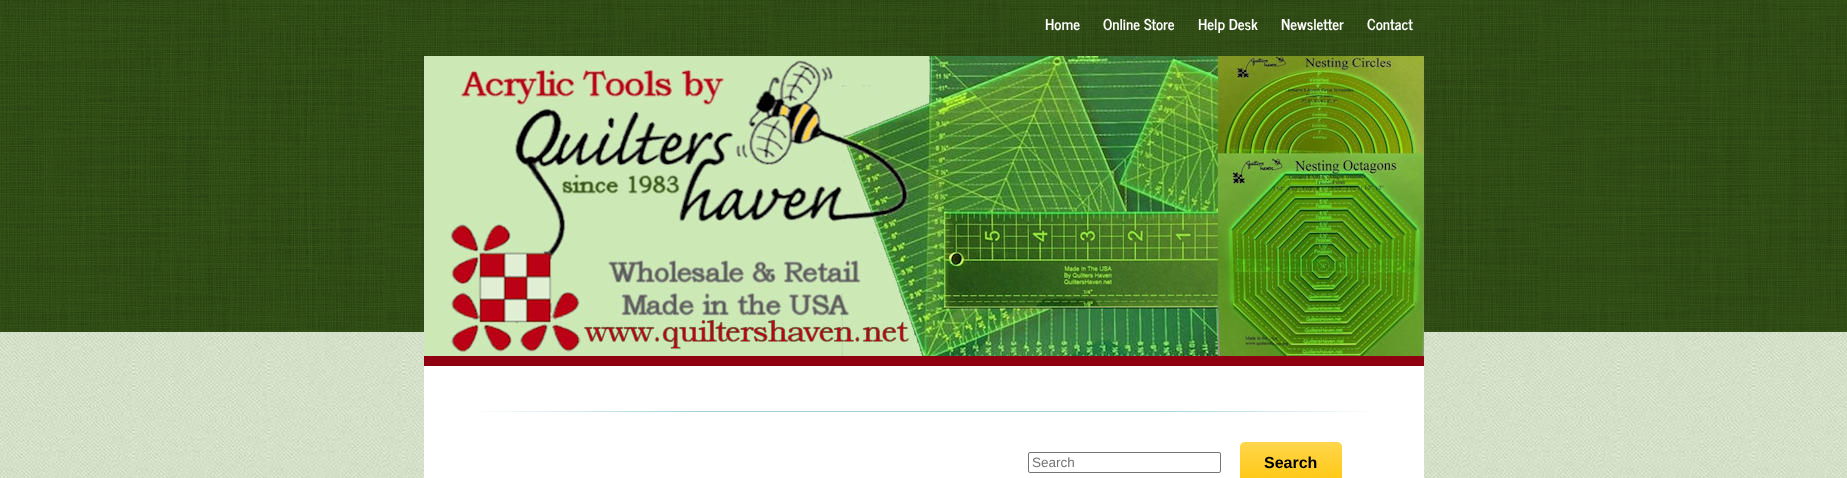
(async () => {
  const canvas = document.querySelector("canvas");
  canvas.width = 1847;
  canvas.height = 478;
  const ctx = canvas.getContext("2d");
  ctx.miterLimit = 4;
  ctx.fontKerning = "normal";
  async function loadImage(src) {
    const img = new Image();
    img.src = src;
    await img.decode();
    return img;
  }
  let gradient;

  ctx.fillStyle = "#ffffff";
  ctx.fillRect(0, 0, 1847, 478);
  ctx.drawImage(await loadImage("img/1.png"), 0, 332, 1847, 146);
  ctx.drawImage(await loadImage("img/2.png"), 0, 0, 1847, 332);
  ctx.drawImage(await loadImage("img/3.png"), 424, 56, 1000, 300);
  ctx.fillStyle = "#8f0111";
  ctx.fillRect(424, 356, 1000, 10);
  ctx.fillStyle = "#ffffff";
  ctx.fillRect(424, 366, 1000, 112);
  gradient = ctx.createLinearGradient(469, 412, 1379, 412);
  gradient.addColorStop(0, "#ffffff");
  gradient.addColorStop(0.25, "#a3d1de");
  gradient.addColorStop(0.75, "#a3d1de");
  gradient.addColorStop(1, "#ffffff");
  ctx.fillStyle = gradient;
  ctx.fillRect(469, 411, 910, 1);
  ctx.beginPath();
  ctx.roundRect(1028.5, 452.5, 192, 20, 1.5);
  ctx.strokeStyle = "#767676";
  ctx.stroke();
  ctx.fillStyle = "#ffc810";
  ctx.beginPath();
  ctx.roundRect(1240, 442, 102, 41, 5);
  ctx.fill();
  ctx.drawImage(await loadImage("img/4.png"), 1240, 442, 102, 36);
  ctx.font = "bold 15px News Cycle";
  ctx.fillStyle = "#ffffff";
  for (const [text, x, y] of [
    ["Home", 1045, 30],
    ["Online Store", 1103, 30],
    ["Help Desk", 1198, 30],
    ["Newsletter", 1281, 30],
    ["Contact", 1367, 30],
  ]) {
    ctx.fillText(text, x, y);
  }
  ctx.font = "13.5px Liberation Sans";
  ctx.fillStyle = "#757575";
  ctx.fillText("Search", 1032, 467);
  ctx.font = "bold 16px Liberation Sans";
  ctx.fillStyle = "#000000";
  ctx.fillText("Search", 1264, 468);
})();
